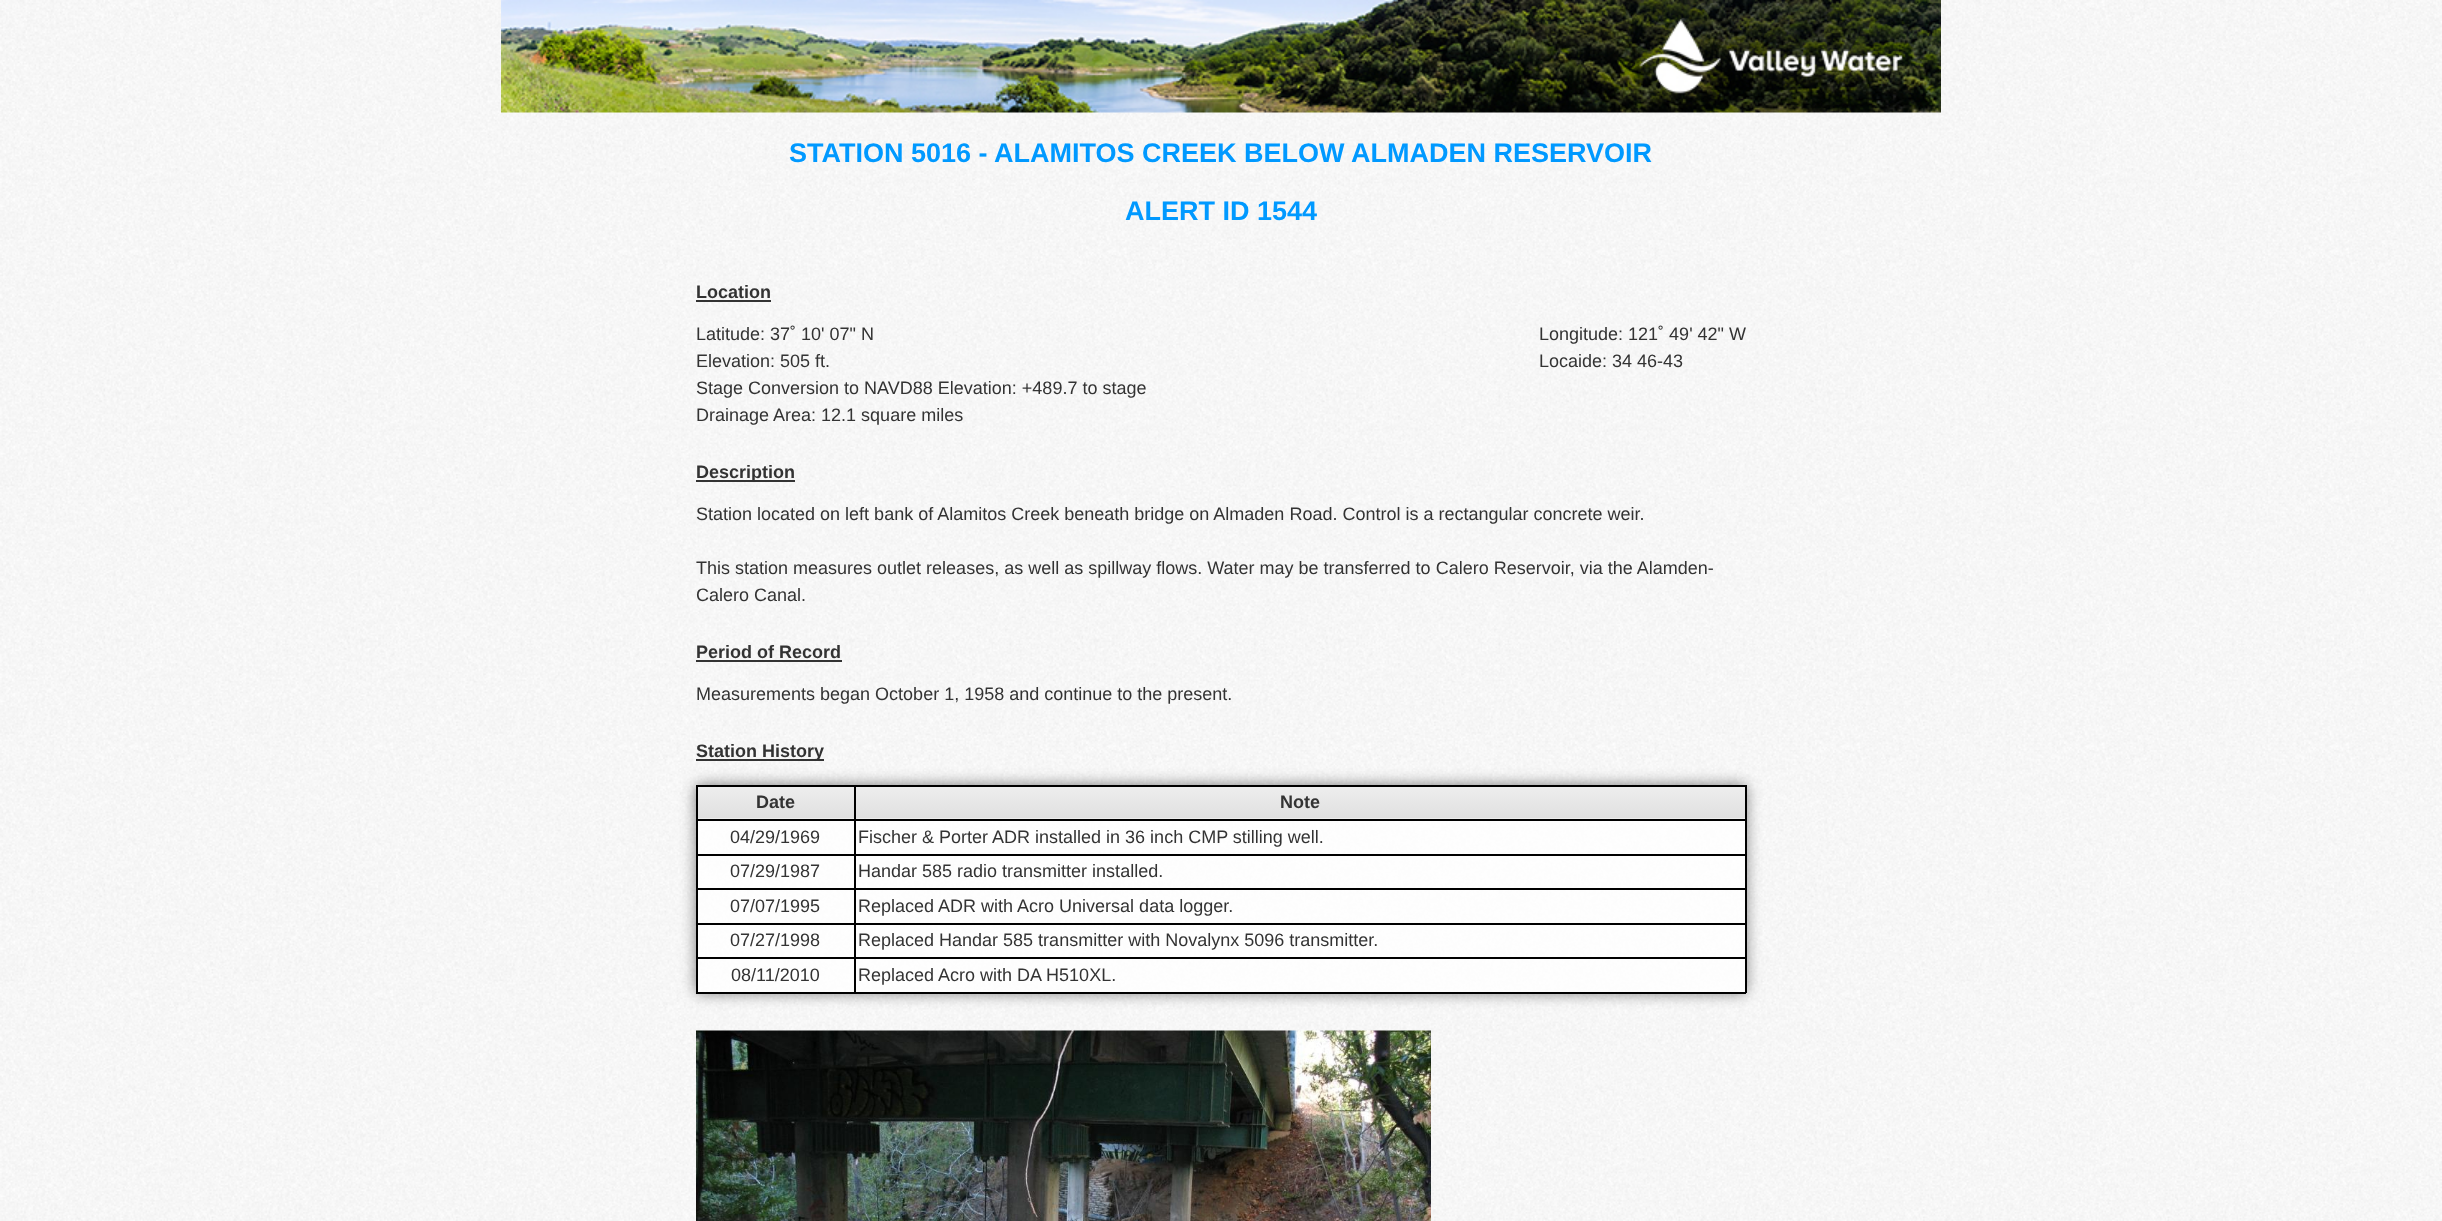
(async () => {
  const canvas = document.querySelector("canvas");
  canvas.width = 2442;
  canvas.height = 1221;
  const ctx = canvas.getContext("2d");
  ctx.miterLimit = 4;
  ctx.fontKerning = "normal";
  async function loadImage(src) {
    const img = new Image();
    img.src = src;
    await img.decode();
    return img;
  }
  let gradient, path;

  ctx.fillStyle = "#ffffff";
  ctx.fillRect(0, 0, 2442, 1221);
  ctx.drawImage(await loadImage("img/1.png"), 0, 0, 2442, 1221);
  ctx.drawImage(await loadImage("img/2.png"), 501, 0, 1440, 113);
  for (const [x, y, w, h, color] of [
    [696, 300, 75, 2, "#333333"],
    [696, 480, 99, 2, "#333333"],
    [696, 660, 146, 2, "#333333"],
    [696, 759, 128, 2, "#333333"],
  ]) {
    ctx.fillStyle = color;
    ctx.fillRect(x, y, w, h);
  }
  ctx.save();
  path = new Path2D("M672 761H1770V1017H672ZM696 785H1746V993H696Z");
  ctx.clip(path, "evenodd");
  ctx.fillStyle = "rgba(0, 0, 0, 0.5)";
  ctx.filter = "blur(7.5px)";
  ctx.beginPath();
  ctx.rect(696, 785, 1050, 208);
  ctx.fill();
  ctx.filter = "none";
  ctx.restore();
  ctx.fillStyle = "rgba(255, 255, 255, 0.8)";
  ctx.fillRect(698, 821, 1047, 171);
  gradient = ctx.createLinearGradient(699, 786, 699, 818);
  gradient.addColorStop(0, "#eeeeee");
  gradient.addColorStop(1, "#e0e0e0");
  ctx.fillStyle = gradient;
  ctx.fillRect(698, 787, 1047, 31);
  gradient = ctx.createLinearGradient(699, 818, 699, 849);
  gradient.addColorStop(0, "#eeeeee");
  gradient.addColorStop(1, "#e0e0e0");
  ctx.fillStyle = gradient;
  ctx.fillRect(698, 818, 1048, 1);
  for (const [x, y, w, h, color] of [
    [696, 785, 1050, 2, "#000000"],
    [696, 819, 1050, 2, "#000000"],
    [696, 854, 1050, 2, "#000000"],
    [696, 888, 1050, 2, "#000000"],
    [696, 923, 1050, 2, "#000000"],
    [696, 957, 1050, 2, "#000000"],
    [1745, 957, 2, 36, "#000000"],
    [1745, 923, 2, 36, "#000000"],
    [1745, 888, 2, 36, "#000000"],
    [1745, 854, 2, 36, "#000000"],
    [1745, 819, 2, 36, "#000000"],
    [1745, 785, 2, 36, "#000000"],
    [696, 992, 1050, 2, "#000000"],
    [696, 957, 2, 36, "#000000"],
    [696, 923, 2, 36, "#000000"],
    [696, 888, 2, 36, "#000000"],
    [696, 854, 2, 36, "#000000"],
    [696, 819, 2, 36, "#000000"],
    [696, 785, 2, 36, "#000000"],
    [854, 785, 2, 208, "#000000"],
  ]) {
    ctx.fillStyle = color;
    ctx.fillRect(x, y, w, h);
  }
  ctx.drawImage(await loadImage("img/3.png"), 696, 1030, 735, 191);
  ctx.font = "bold 27px Liberation Sans";
  ctx.fillStyle = "#0099ff";
  ctx.fillText("STATION 5016 - ALAMITOS CREEK BELOW ALMADEN RESERVOIR", 789, 162);
  ctx.fillText("ALERT ID 1544", 1125, 220);
  ctx.font = "bold 18px Liberation Sans";
  ctx.fillStyle = "#333333";
  ctx.fillText("Location", 696, 298);
  ctx.font = "18px Liberation Sans";
  for (const [text, x, y] of [
    ["Latitude: 37˚ 10' 07\" N", 696, 340],
    ["Elevation: 505 ft.", 696, 367],
    ["Stage Conversion to NAVD88 Elevation: +489.7 to stage", 696, 394],
    ["Drainage Area: 12.1 square miles", 696, 421],
    ["Longitude: 121˚ 49' 42\" W", 1539, 340],
    ["Locaide: 34 46-43", 1539, 367],
  ]) {
    ctx.fillText(text, x, y);
  }
  ctx.font = "bold 18px Liberation Sans";
  ctx.fillText("Description", 696, 478);
  ctx.font = "18px Liberation Sans";
  for (const [text, x, y] of [
    ["Station located on left bank of Alamitos Creek beneath bridge on Almaden Road. Control is a rectangular concrete weir.", 696, 520],
    ["This station measures outlet releases, as well as spillway flows. Water may be transferred to Calero Reservoir, via the Alamden-", 696, 574],
    ["Calero Canal.", 696, 601],
  ]) {
    ctx.fillText(text, x, y);
  }
  ctx.font = "bold 18px Liberation Sans";
  ctx.fillText("Period of Record", 696, 658);
  ctx.font = "18px Liberation Sans";
  ctx.fillText("Measurements began October 1, 1958 and continue to the present.", 696, 700);
  ctx.font = "bold 18px Liberation Sans";
  for (const [text, x, y] of [
    ["Station History", 696, 757],
    ["Date", 756, 808],
    ["Note", 1280, 808],
  ]) {
    ctx.fillText(text, x, y);
  }
  ctx.font = "18px Liberation Sans";
  for (const [text, x, y] of [
    ["04/29/1969", 730, 843],
    ["Fischer & Porter ADR installed in 36 inch CMP stilling well.", 858, 843],
    ["07/29/1987", 730, 877],
    ["Handar 585 radio transmitter installed.", 858, 877],
    ["07/07/1995", 730, 912],
    ["Replaced ADR with Acro Universal data logger.", 858, 912],
    ["07/27/1998", 730, 946],
    ["Replaced Handar 585 transmitter with Novalynx 5096 transmitter.", 858, 946],
    ["08/11/2010", 731, 981],
    ["Replaced Acro with DA H510XL.", 858, 981],
  ]) {
    ctx.fillText(text, x, y);
  }
})();
